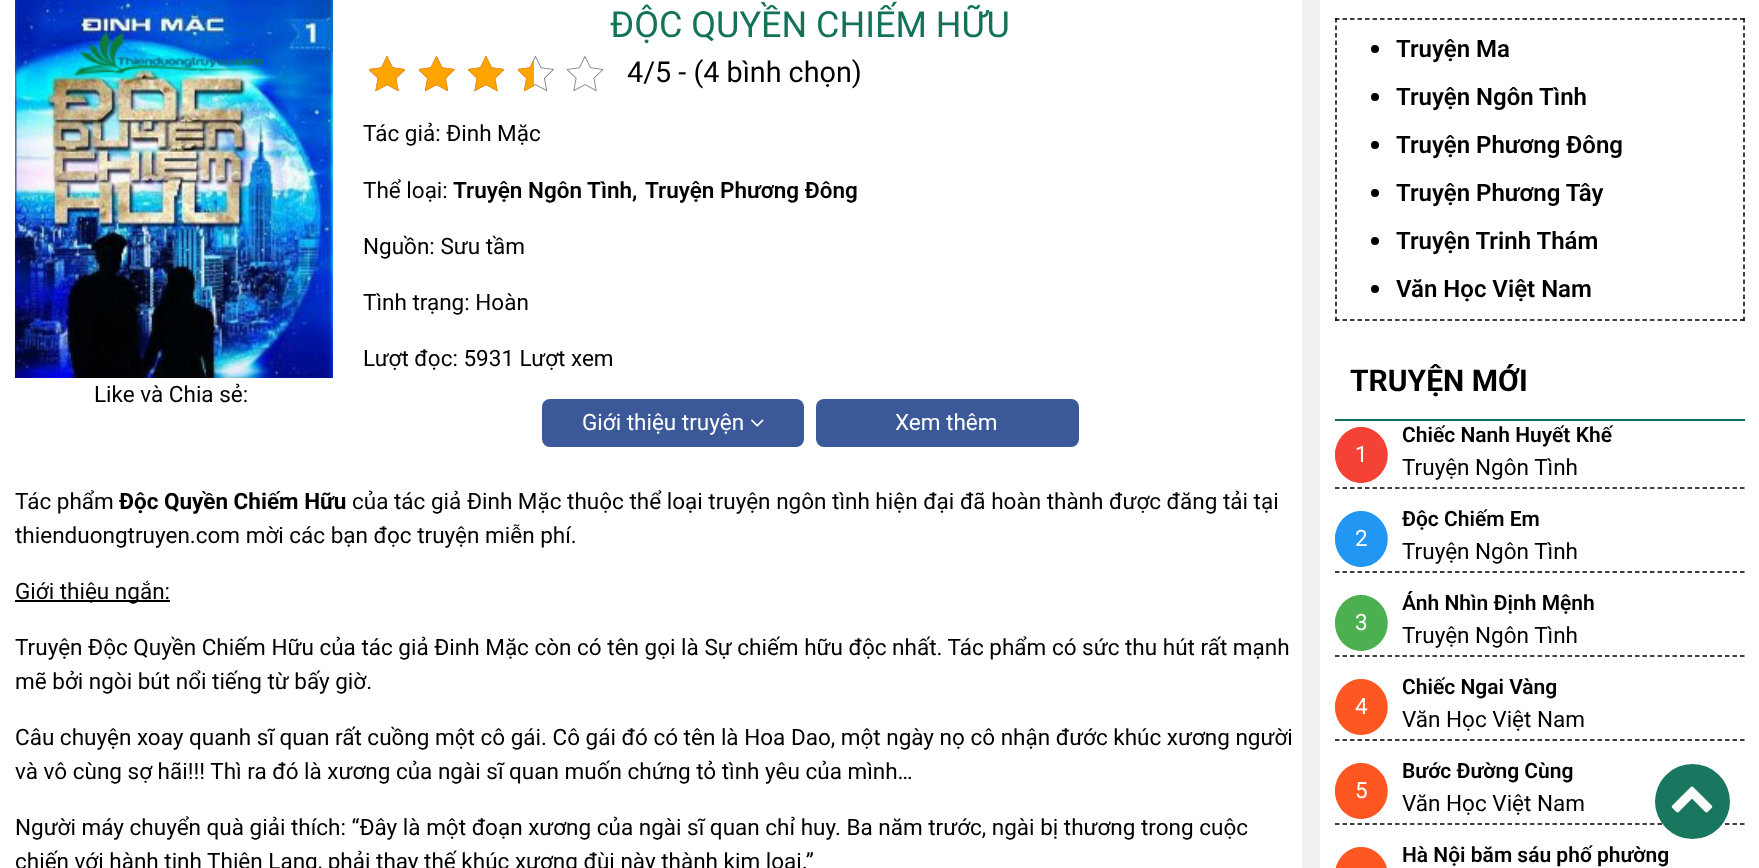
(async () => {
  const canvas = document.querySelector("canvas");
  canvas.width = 1759;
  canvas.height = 868;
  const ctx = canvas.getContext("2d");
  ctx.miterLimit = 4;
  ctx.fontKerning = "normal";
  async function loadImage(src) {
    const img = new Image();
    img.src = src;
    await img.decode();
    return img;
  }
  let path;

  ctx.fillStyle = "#f0f0f0";
  ctx.fillRect(0, 0, 1759, 868);
  ctx.fillStyle = "#ffffff";
  ctx.fillRect(0, 0, 1302, 868);
  ctx.drawImage(await loadImage("img/1.png"), 15, 0, 318, 378);
  ctx.drawImage(await loadImage("img/2.png"), 369, 56, 36, 36);
  ctx.drawImage(await loadImage("img/3.png"), 419, 56, 36, 36);
  ctx.drawImage(await loadImage("img/2.png"), 468, 56, 36, 36);
  ctx.drawImage(await loadImage("img/3.png"), 518, 56, 36, 36);
  ctx.drawImage(await loadImage("img/2.png"), 567, 56, 36, 36);
  ctx.drawImage(await loadImage("img/4.png"), 369, 56, 36, 36);
  ctx.drawImage(await loadImage("img/5.png"), 419, 56, 36, 36);
  ctx.drawImage(await loadImage("img/4.png"), 468, 56, 36, 36);
  ctx.drawImage(await loadImage("img/6.png"), 518, 58, 16, 34);
  ctx.fillStyle = "#3b5998";
  ctx.beginPath();
  ctx.roundRect(542, 399, 262, 48, 8);
  ctx.fill();
  ctx.drawImage(await loadImage("img/7.png"), 751, 419, 13, 8);
  ctx.beginPath();
  ctx.roundRect(816, 399, 263, 48, 8);
  ctx.fill();
  ctx.fillStyle = "#000000";
  ctx.fillRect(15, 600, 155, 2);
  ctx.fillStyle = "#ffffff";
  ctx.fillRect(1320, 0, 439, 868);
  path = new Path2D("M1335 19H1744.5");
  ctx.strokeStyle = "#000000";
  ctx.lineWidth = 1.5;
  ctx.setLineDash([4.5, 3]);
  ctx.stroke(path);
  path = new Path2D("M1744 18V321");
  ctx.setLineDash([4.5, 2.97]);
  ctx.stroke(path);
  path = new Path2D("M1335 320H1744.5");
  ctx.setLineDash([4.5, 3]);
  ctx.stroke(path);
  path = new Path2D("M1336 18V321");
  ctx.setLineDash([4.5, 2.97]);
  ctx.stroke(path);
  ctx.fillStyle = "#000000";
  ctx.beginPath();
  ctx.arc(1375, 49, 4, 0, Math.PI * 2);
  ctx.fill();
  ctx.beginPath();
  ctx.arc(1375, 97, 4, 0, Math.PI * 2);
  ctx.fill();
  ctx.beginPath();
  ctx.arc(1375, 145, 4, 0, Math.PI * 2);
  ctx.fill();
  ctx.beginPath();
  ctx.arc(1375, 193, 4, 0, Math.PI * 2);
  ctx.fill();
  ctx.beginPath();
  ctx.arc(1375, 241, 4, 0, Math.PI * 2);
  ctx.fill();
  ctx.beginPath();
  ctx.arc(1375, 289, 4, 0, Math.PI * 2);
  ctx.fill();
  ctx.fillStyle = "#12725a";
  ctx.fillRect(1335, 419, 410, 2);
  path = new Path2D("M1335 488H1744.5");
  ctx.setLineDash([4.5, 3]);
  ctx.stroke(path);
  ctx.fillStyle = "#f44336";
  ctx.beginPath();
  ctx.ellipse(1361, 455, 26, 28, 0, 0, Math.PI * 2);
  ctx.fill();
  path = new Path2D("M1361 428C1375.5 428 1387 440.5 1387 455C1387 470 1375.5 482 1361 482C1347 482 1336 470 1336 455C1336 440.5 1347 428 1361 428Z");
  ctx.strokeStyle = "#f44336";
  ctx.setLineDash([]);
  ctx.stroke(path);
  path = new Path2D("M1335 572H1744.5");
  ctx.strokeStyle = "#000000";
  ctx.setLineDash([4.5, 3]);
  ctx.stroke(path);
  ctx.fillStyle = "#2196f3";
  ctx.beginPath();
  ctx.ellipse(1361, 539, 26, 28, 0, 0, Math.PI * 2);
  ctx.fill();
  path = new Path2D("M1361 512C1375.5 512 1387 524.5 1387 539C1387 554 1375.5 566 1361 566C1347 566 1336 554 1336 539C1336 524.5 1347 512 1361 512Z");
  ctx.strokeStyle = "#2196f3";
  ctx.setLineDash([]);
  ctx.stroke(path);
  path = new Path2D("M1335 656H1744.5");
  ctx.strokeStyle = "#000000";
  ctx.setLineDash([4.5, 3]);
  ctx.stroke(path);
  ctx.fillStyle = "#4caf50";
  ctx.beginPath();
  ctx.ellipse(1361, 623, 26, 28, 0, 0, Math.PI * 2);
  ctx.fill();
  path = new Path2D("M1361 596C1375.5 596 1387 608.5 1387 623C1387 638 1375.5 650 1361 650C1347 650 1336 638 1336 623C1336 608.5 1347 596 1361 596Z");
  ctx.strokeStyle = "#4caf50";
  ctx.setLineDash([]);
  ctx.stroke(path);
  path = new Path2D("M1335 740H1744.5");
  ctx.strokeStyle = "#000000";
  ctx.setLineDash([4.5, 3]);
  ctx.stroke(path);
  ctx.fillStyle = "#ff5722";
  ctx.beginPath();
  ctx.ellipse(1361, 707, 26, 28, 0, 0, Math.PI * 2);
  ctx.fill();
  path = new Path2D("M1361 680C1375.5 680 1387 692.5 1387 707C1387 722 1375.5 734 1361 734C1347 734 1336 722 1336 707C1336 692.5 1347 680 1361 680Z");
  ctx.strokeStyle = "#ff5722";
  ctx.setLineDash([]);
  ctx.stroke(path);
  path = new Path2D("M1335 824H1744.5");
  ctx.strokeStyle = "#000000";
  ctx.setLineDash([4.5, 3]);
  ctx.stroke(path);
  ctx.beginPath();
  ctx.ellipse(1361, 791, 26, 28, 0, 0, Math.PI * 2);
  ctx.fill();
  path = new Path2D("M1361 764C1375.5 764 1387 776.5 1387 791C1387 806 1375.5 818 1361 818C1347 818 1336 806 1336 791C1336 776.5 1347 764 1361 764Z");
  ctx.strokeStyle = "#ff5722";
  ctx.setLineDash([]);
  ctx.stroke(path);
  ctx.beginPath();
  ctx.ellipse(1361, 875, 26, 28, 0, 0, Math.PI * 2);
  ctx.fill();
  path = new Path2D("M1361 848C1375.5 848 1387 860.5 1387 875C1387 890 1375.5 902 1361 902C1347 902 1336 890 1336 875C1336 860.5 1347 848 1361 848Z");
  ctx.stroke(path);
  ctx.fillStyle = "rgba(18, 114, 90, 0.97)";
  ctx.beginPath();
  ctx.arc(1692.5, 801.5, 37.5, 0, Math.PI * 2);
  ctx.fill();
  ctx.drawImage(await loadImage("img/8.png"), 1671, 786, 42, 27);
  ctx.font = "22.5px Roboto";
  ctx.fillStyle = "#000000";
  ctx.fillText("Like và Chia sẻ:", 94, 402);
  ctx.font = "36px Roboto";
  ctx.fillStyle = "#12725a";
  ctx.fillText("ĐỘC QUYỀN CHIẾM HỮU", 610, 37);
  ctx.font = "28.75px Roboto";
  ctx.fillStyle = "#000000";
  ctx.fillText("4/5 - (4 bình chọn)", 627, 82);
  ctx.font = "22.5px Roboto";
  ctx.fillText("Tác giả: Đinh Mặc", 363, 141);
  ctx.fillText("Thể loại:", 363, 198);
  ctx.font = "600 22.5px Roboto";
  ctx.fillText("Truyện Ngôn Tình,", 453, 198);
  ctx.fillText("Truyện Phương Đông", 645, 198);
  ctx.font = "22.5px Roboto";
  for (const [text, x, y] of [
    ["Nguồn: Sưu tầm", 363, 254],
    ["Tình trạng: Hoàn", 363, 310],
    ["Lượt đọc: 5931 Lượt xem", 363, 366],
  ]) {
    ctx.fillText(text, x, y);
  }
  ctx.fillStyle = "#ffffff";
  ctx.fillText("Giới thiệu truyện", 582, 430);
  ctx.fillText("Xem thêm", 895, 430);
  ctx.fillStyle = "#000000";
  ctx.fillText("Tác phẩm", 15, 509);
  ctx.font = "bold 22.5px Roboto";
  ctx.fillText("Độc Quyền Chiếm Hữu", 119, 509);
  ctx.font = "22.5px Roboto";
  for (const [text, x, y] of [
    ["của tác giả Đinh Mặc thuộc thể loại truyện ngôn tình hiện đại đã hoàn thành được đăng tải tại", 352, 509],
    ["thienduongtruyen.com mời các bạn đọc truyện miễn phí.", 15, 543],
    ["Giới thiệu ngắn:", 15, 599],
    ["Truyện Độc Quyền Chiếm Hữu của tác giả Đinh Mặc còn có tên gọi là Sự chiếm hữu độc nhất. Tác phẩm có sức thu hút rất mạnh", 15, 655],
    ["mẽ bởi ngòi bút nổi tiếng từ bấy giờ.", 15, 689],
    ["Câu chuyện xoay quanh sĩ quan rất cuồng một cô gái. Cô gái đó có tên là Hoa Dao, một ngày nọ cô nhận đước khúc xương người", 15, 745],
    ["và vô cùng sợ hãi!!! Thì ra đó là xương của ngài sĩ quan muốn chứng tỏ tình yêu của mình…", 15, 779],
    ["Người máy chuyển quà giải thích: “Đây là một đoạn xương của ngài sĩ quan chỉ huy. Ba năm trước, ngài bị thương trong cuộc", 15, 835],
    ["chiến với hành tinh Thiên Lang, phải thay thế khúc xương đùi này thành kim loại.”", 15, 869],
  ]) {
    ctx.fillText(text, x, y);
  }
  ctx.font = "600 24px Roboto";
  for (const [text, x, y] of [
    ["Truyện Ma", 1396, 57],
    ["Truyện Ngôn Tình", 1396, 105],
    ["Truyện Phương Đông", 1396, 153],
    ["Truyện Phương Tây", 1396, 201],
    ["Truyện Trinh Thám", 1396, 249],
    ["Văn Học Việt Nam", 1396, 297],
  ]) {
    ctx.fillText(text, x, y);
  }
  ctx.font = "bold 30px Roboto";
  ctx.fillText("TRUYỆN MỚI", 1350, 391);
  ctx.font = "22.5px Roboto";
  ctx.fillStyle = "#ffffff";
  ctx.fillText("1", 1355, 462);
  ctx.font = "600 21px Roboto";
  ctx.fillStyle = "#000000";
  ctx.fillText("Chiếc Nanh Huyết Khế", 1402, 442);
  ctx.font = "22.5px Roboto";
  ctx.fillText("Truyện Ngôn Tình", 1402, 475);
  ctx.fillStyle = "#ffffff";
  ctx.fillText("2", 1355, 546);
  ctx.font = "600 21px Roboto";
  ctx.fillStyle = "#000000";
  ctx.fillText("Độc Chiếm Em", 1402, 526);
  ctx.font = "22.5px Roboto";
  ctx.fillText("Truyện Ngôn Tình", 1402, 559);
  ctx.fillStyle = "#ffffff";
  ctx.fillText("3", 1355, 630);
  ctx.font = "600 21px Roboto";
  ctx.fillStyle = "#000000";
  ctx.fillText("Ánh Nhìn Định Mệnh", 1402, 610);
  ctx.font = "22.5px Roboto";
  ctx.fillText("Truyện Ngôn Tình", 1402, 643);
  ctx.fillStyle = "#ffffff";
  ctx.fillText("4", 1355, 714);
  ctx.font = "600 21px Roboto";
  ctx.fillStyle = "#000000";
  ctx.fillText("Chiếc Ngai Vàng", 1402, 694);
  ctx.font = "22.5px Roboto";
  ctx.fillText("Văn Học Việt Nam", 1402, 727);
  ctx.fillStyle = "#ffffff";
  ctx.fillText("5", 1355, 798);
  ctx.font = "600 21px Roboto";
  ctx.fillStyle = "#000000";
  ctx.fillText("Bước Đường Cùng", 1402, 778);
  ctx.font = "22.5px Roboto";
  ctx.fillText("Văn Học Việt Nam", 1402, 811);
  ctx.font = "600 21px Roboto";
  ctx.fillText("Hà Nội băm sáu phố phường", 1402, 862);
})();
